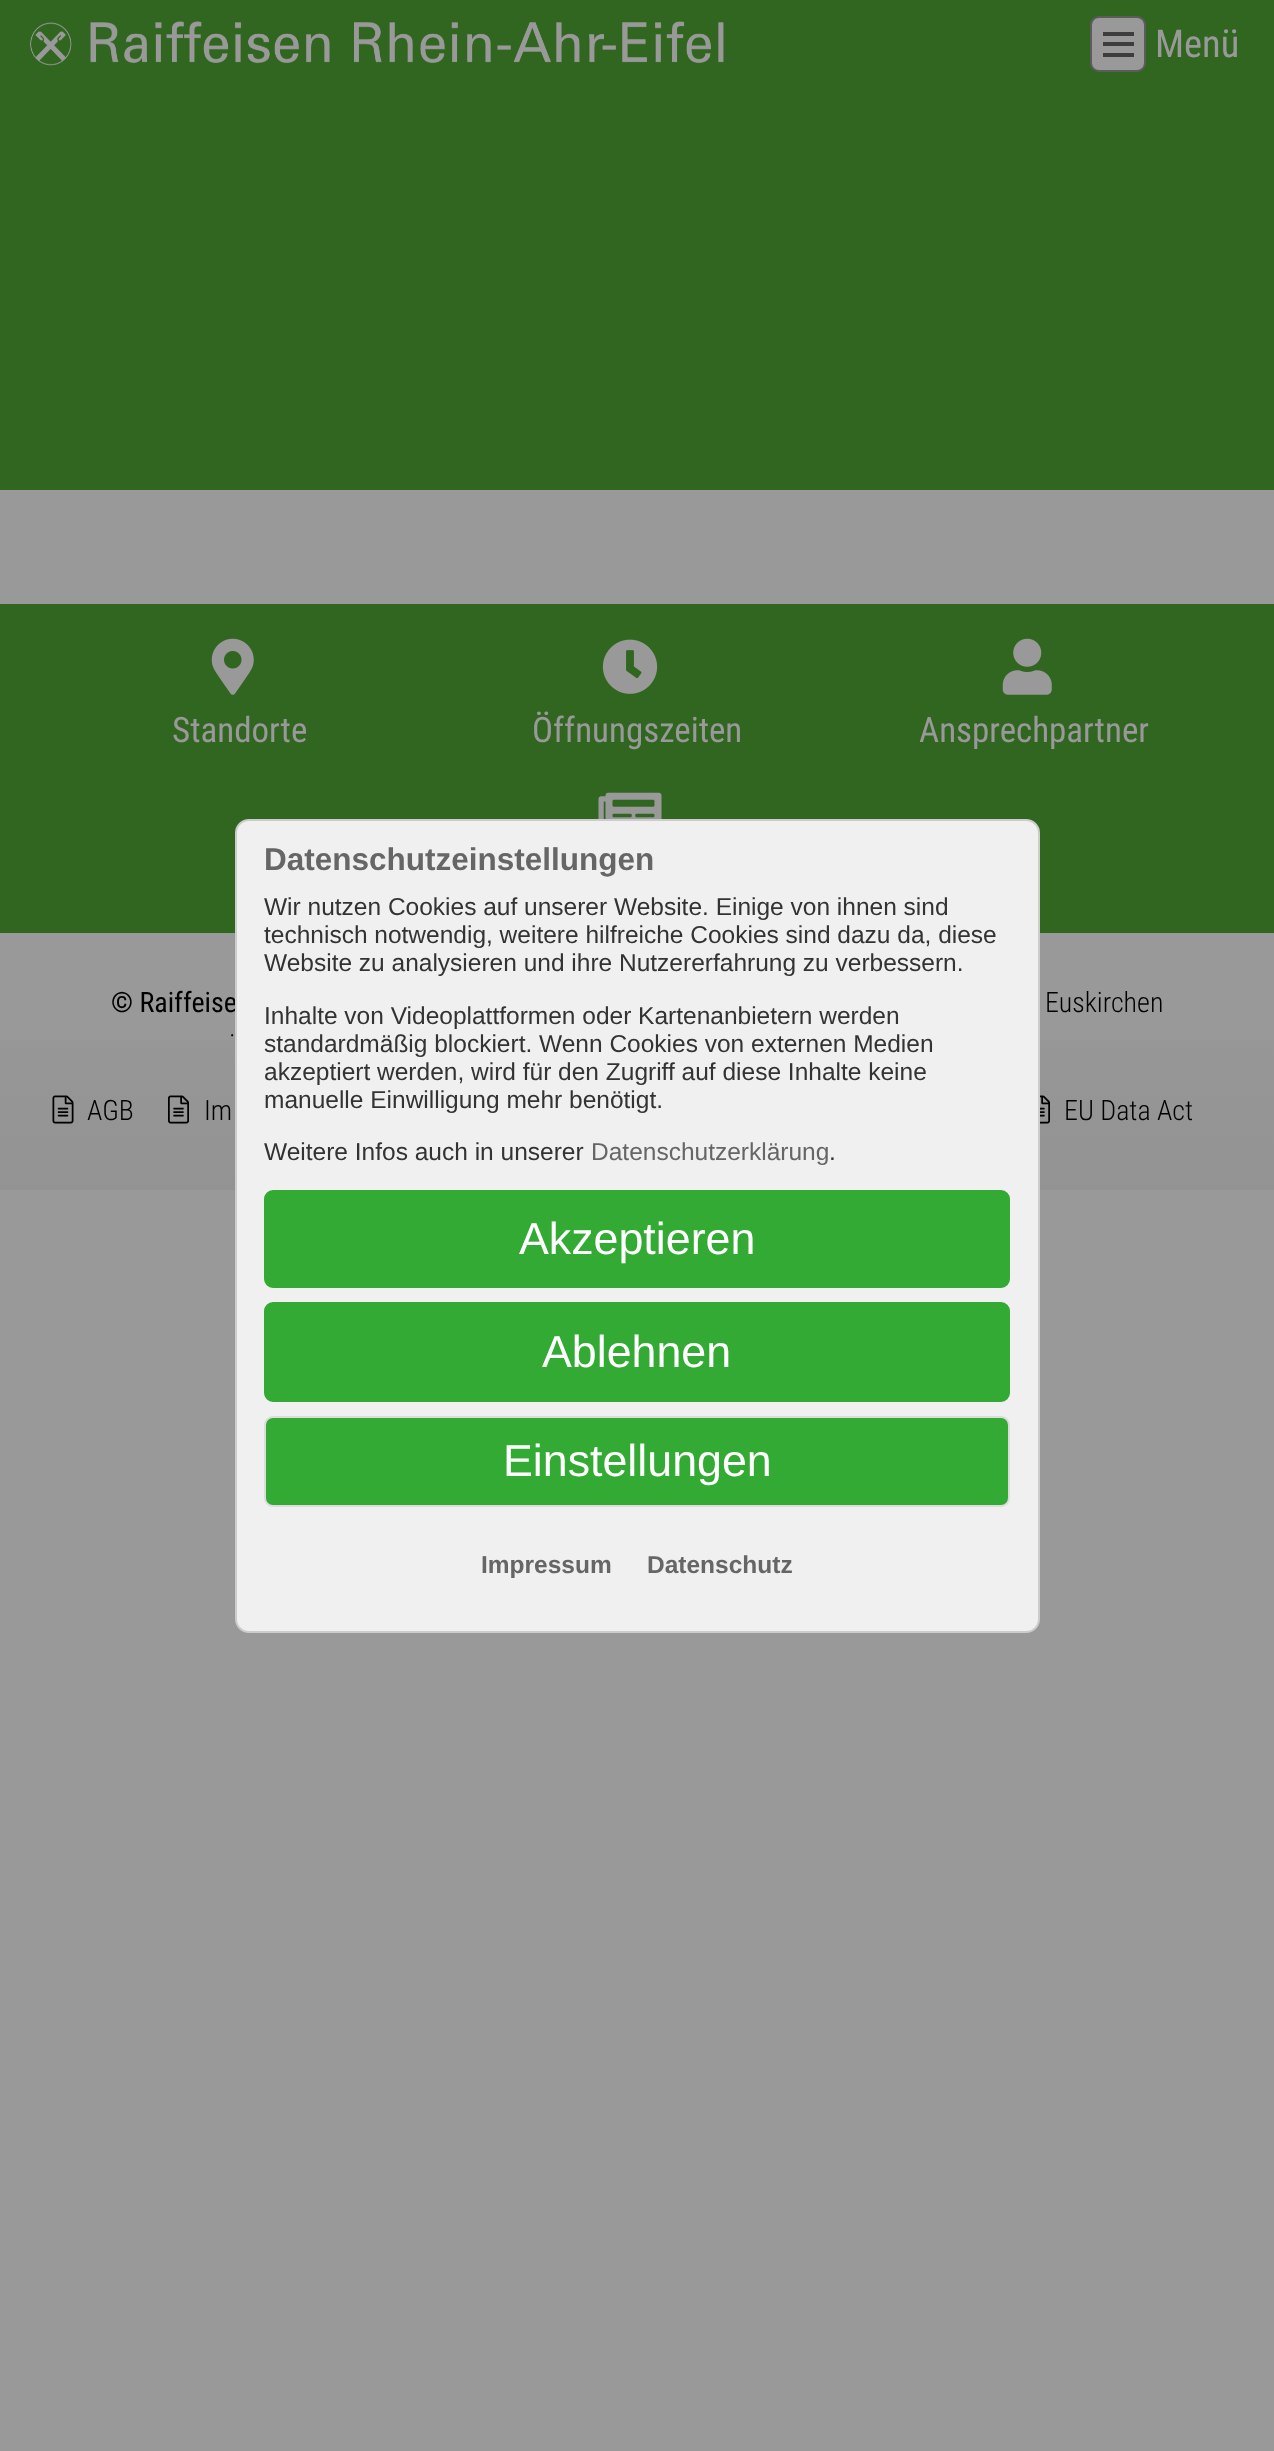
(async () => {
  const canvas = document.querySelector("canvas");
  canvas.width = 1274;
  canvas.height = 2451;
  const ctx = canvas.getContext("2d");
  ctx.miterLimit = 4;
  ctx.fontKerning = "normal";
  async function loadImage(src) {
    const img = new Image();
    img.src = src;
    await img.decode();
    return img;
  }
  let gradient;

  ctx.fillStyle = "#999999";
  ctx.fillRect(0, 0, 1274, 2451);
  ctx.fillStyle = "#316620";
  ctx.fillRect(0, 0, 1274, 490);
  ctx.drawImage(await loadImage("img/1.png"), 30, 21, 694, 45);
  ctx.fillStyle = "#999999";
  ctx.beginPath();
  ctx.roundRect(1091, 17, 54, 54, 8);
  ctx.fill();
  ctx.strokeStyle = "#5c5c5c";
  ctx.lineWidth = 2;
  ctx.stroke();
  for (const [x, y, w, h, color] of [
    [1103, 32, 31, 4, "#3d3d3d"],
    [1103, 53, 31, 4, "#3d3d3d"],
    [1103, 42, 31, 4, "#3d3d3d"],
    [0, 604, 1274, 329, "#316620"],
  ]) {
    ctx.fillStyle = color;
    ctx.fillRect(x, y, w, h);
  }
  ctx.drawImage(await loadImage("img/2.png"), 211, 638, 43, 57);
  ctx.drawImage(await loadImage("img/3.png"), 602, 639, 56, 55);
  ctx.drawImage(await loadImage("img/4.png"), 1002, 638, 50, 57);
  ctx.drawImage(await loadImage("img/5.png"), 598, 792, 64, 27);
  gradient = ctx.createLinearGradient(637, 933, 637, 1190);
  gradient.addColorStop(0, "#999999");
  gradient.addColorStop(1, "#939393");
  ctx.fillStyle = gradient;
  ctx.fillRect(0, 1040, 1274, 150);
  ctx.drawImage(await loadImage("img/6.png"), 52, 1095, 22, 29);
  ctx.drawImage(await loadImage("img/7.png"), 168, 1095, 21, 29);
  ctx.drawImage(await loadImage("img/8.png"), 1040, 1095, 10, 29);
  ctx.font = "38.5px Roboto Condensed";
  ctx.fillStyle = "#999999";
  ctx.fillText("Menü", 1155, 57);
  ctx.font = "35px Roboto Condensed";
  for (const [text, x, y] of [
    ["Standorte", 172, 742],
    ["Öffnungszeiten", 532, 742],
    ["Ansprechpartner", 919, 742],
  ]) {
    ctx.fillText(text, x, y);
  }
  ctx.font = "28px Roboto Condensed";
  ctx.fillStyle = "#000000";
  ctx.fillText("© Raiffeise", 111, 1012);
  ctx.font = "300 28px Roboto Condensed";
  for (const [text, x, y] of [
    ["Euskirchen", 1045, 1012],
    ["·", 229, 1045],
    ["AGB", 87, 1120],
    ["Im", 204, 1120],
    ["EU Data Act", 1064, 1120],
  ]) {
    ctx.fillText(text, x, y);
  }
  ctx.fillStyle = "#f0f0f0";
  ctx.beginPath();
  ctx.roundRect(236, 820, 803, 812, 13);
  ctx.fill();
  ctx.strokeStyle = "#cccccc";
  ctx.stroke();
  ctx.font = "bold 31.5px Liberation Sans";
  ctx.fillStyle = "#666666";
  ctx.fillText("Datenschutzeinstellungen", 264, 870);
  ctx.font = "24.5px Liberation Sans";
  ctx.fillStyle = "#333333";
  for (const [text, x, y] of [
    ["Wir nutzen Cookies auf unserer Website. Einige von ihnen sind", 264, 915],
    ["technisch notwendig, weitere hilfreiche Cookies sind dazu da, diese", 264, 943],
    ["Website zu analysieren und ihre Nutzererfahrung zu verbessern.", 264, 971],
    ["Inhalte von Videoplattformen oder Kartenanbietern werden", 264, 1024],
    ["standardmäßig blockiert. Wenn Cookies von externen Medien", 264, 1052],
    ["akzeptiert werden, wird für den Zugriff auf diese Inhalte keine", 264, 1080],
    ["manuelle Einwilligung mehr benötigt.", 264, 1108],
    ["Weitere Infos auch in unserer", 264, 1160],
  ]) {
    ctx.fillText(text, x, y);
  }
  ctx.fillStyle = "#666666";
  ctx.fillText("Datenschutzerklärung", 591, 1160);
  ctx.fillStyle = "#333333";
  ctx.fillText(".", 829, 1160);
  ctx.fillStyle = "#33aa33";
  ctx.beginPath();
  ctx.roundRect(265, 1191, 744, 96, 8);
  ctx.fill();
  ctx.strokeStyle = "#33aa33";
  ctx.stroke();
  ctx.font = "44.75px Liberation Sans";
  ctx.fillStyle = "#ffffff";
  ctx.fillText("Akzeptieren", 519, 1254);
  ctx.fillStyle = "#33aa33";
  ctx.beginPath();
  ctx.roundRect(265, 1303, 744, 98, 8);
  ctx.fill();
  ctx.stroke();
  ctx.fillStyle = "#ffffff";
  ctx.fillText("Ablehnen", 542, 1367);
  ctx.fillStyle = "#33aa33";
  ctx.beginPath();
  ctx.roundRect(265, 1417, 744, 89, 8);
  ctx.fill();
  ctx.strokeStyle = "#dcdcdc";
  ctx.stroke();
  ctx.fillStyle = "#ffffff";
  ctx.fillText("Einstellungen", 503, 1476);
  ctx.font = "bold 24.5px Liberation Sans";
  ctx.fillStyle = "#666666";
  ctx.fillText("Impressum", 481, 1573);
  ctx.fillText("Datenschutz", 647, 1573);
})();
